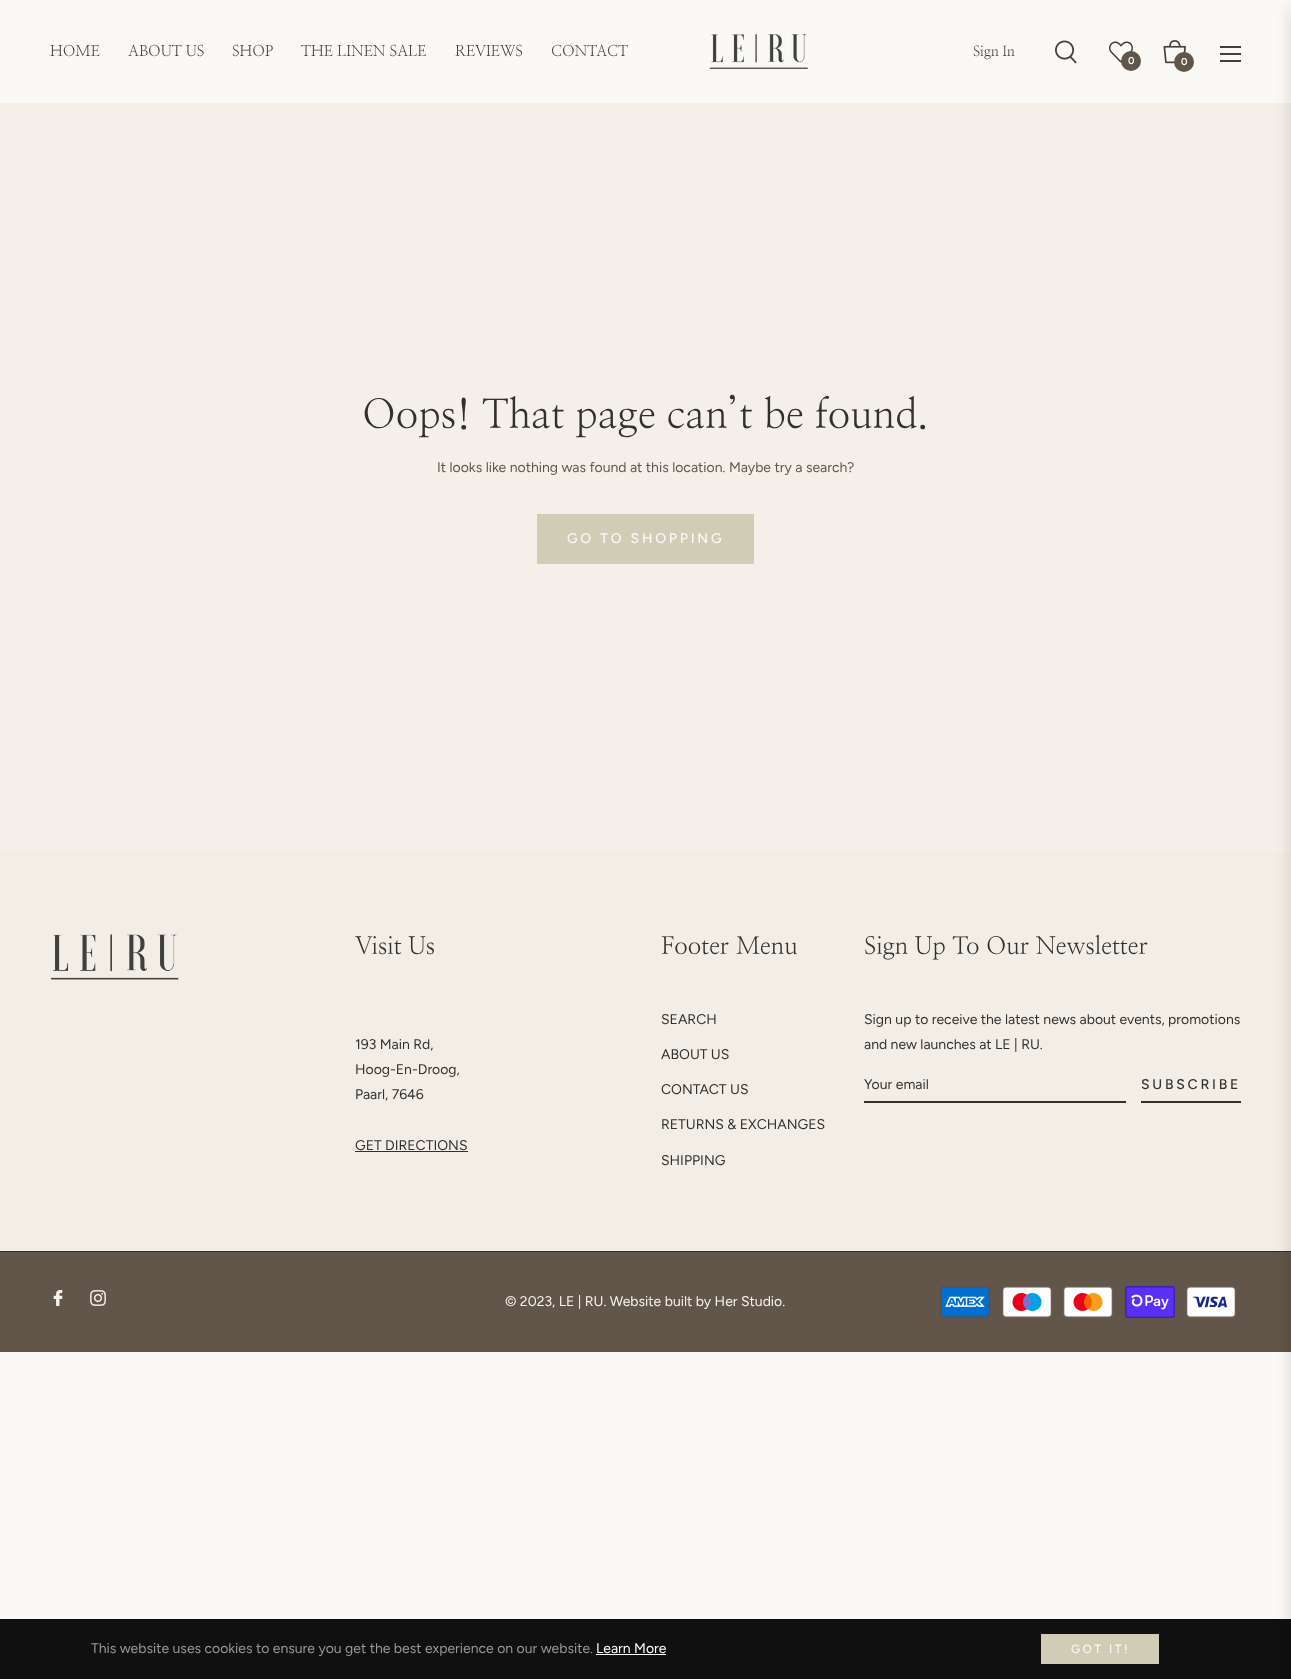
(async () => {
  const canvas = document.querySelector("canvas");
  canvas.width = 1291;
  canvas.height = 1679;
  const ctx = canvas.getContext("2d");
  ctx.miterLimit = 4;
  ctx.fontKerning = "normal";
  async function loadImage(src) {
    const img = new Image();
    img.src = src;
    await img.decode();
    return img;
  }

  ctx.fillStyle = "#faf9f6";
  ctx.fillRect(0, 0, 1291, 1679);
  ctx.drawImage(await loadImage("img/1.png"), 709, 34, 99, 35);
  ctx.drawImage(await loadImage("img/2.png"), 1055, 40, 22, 24);
  ctx.drawImage(await loadImage("img/3.png"), 1109, 41, 24, 22);
  ctx.fillStyle = "#62554a";
  ctx.beginPath();
  ctx.arc(1131, 61, 10, 0, Math.PI * 2);
  ctx.fill();
  ctx.drawImage(await loadImage("img/4.png"), 1163, 40, 23, 24);
  ctx.beginPath();
  ctx.arc(1184, 62, 10, 0, Math.PI * 2);
  ctx.fill();
  for (const [x, y, w, h, color] of [
    [0, 103, 1291, 750, "#f4efe9"],
    [0, 853, 1291, 398, "#f3eee5"],
    [0, 1252, 1291, 100, "#62554a"],
    [0, 1251, 1291, 1, "#332f2b"],
    [0, 1619, 1291, 60, "#101010"],
  ]) {
    ctx.fillStyle = color;
    ctx.fillRect(x, y, w, h);
  }
  ctx.fillStyle = "rgba(0, 0, 0, 0.15)";
  ctx.filter = "blur(8px)";
  ctx.beginPath();
  ctx.rect(1291, 8, 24, 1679);
  ctx.fill();
  ctx.filter = "none";
  for (const [x, y, w, h, color] of [
    [1220, 46, 21, 2, "#423f3f"],
    [1220, 53, 21, 2, "#423f3f"],
    [1220, 60, 21, 2, "#423f3f"],
    [537, 514, 217, 50, "#d0ccb5"],
  ]) {
    ctx.fillStyle = color;
    ctx.fillRect(x, y, w, h);
  }
  ctx.drawImage(await loadImage("img/5.png"), 51, 934, 128, 46);
  for (const [x, y, w, h, color] of [
    [355, 1151, 113, 1, "#332f2b"],
    [864, 1101, 262, 2, "#332f2b"],
    [1141, 1101, 100, 2, "#332f2b"],
  ]) {
    ctx.fillStyle = color;
    ctx.fillRect(x, y, w, h);
  }
  ctx.drawImage(await loadImage("img/6.png"), 53, 1290, 10, 16);
  ctx.drawImage(await loadImage("img/7.png"), 90, 1290, 16, 16);
  ctx.drawImage(await loadImage("img/8.png"), 940, 1286, 50, 32);
  ctx.drawImage(await loadImage("img/9.png"), 1002, 1286, 50, 32);
  ctx.drawImage(await loadImage("img/10.png"), 1063, 1286, 50, 32);
  ctx.drawImage(await loadImage("img/11.png"), 1125, 1286, 50, 32);
  ctx.drawImage(await loadImage("img/12.png"), 1186, 1286, 50, 32);
  ctx.fillStyle = "#ffffff";
  ctx.fillRect(596, 1654, 70, 1);
  ctx.fillStyle = "#d0ccb5";
  ctx.fillRect(1041, 1634, 118, 30);
  ctx.font = "15px NanumMyeongjo";
  ctx.fillStyle = "#423f3f";
  for (const [text, x, y] of [
    ["HOME", 50, 56],
    ["ABOUT US", 128, 56],
    ["SHOP", 232, 56],
    ["THE LINEN SALE", 301, 56],
    ["REVIEWS", 455, 56],
    ["CONTACT", 551, 56],
  ]) {
    ctx.fillText(text, x, y);
  }
  ctx.font = "14px NanumMyeongjo";
  ctx.fillText("Sign In", 973, 56);
  ctx.font = "600 10px Figtree";
  ctx.fillStyle = "#ffffff";
  ctx.fillText("0", 1128, 64);
  ctx.fillText("0", 1181, 65);
  ctx.font = "40px NanumMyeongjo";
  ctx.fillStyle = "#303030";
  ctx.fillText("Oops! That page can’t be found.", 362, 428);
  ctx.font = "14px Figtree";
  ctx.fillStyle = "#62554a";
  ctx.fillText("It looks like nothing was found at this location. Maybe try a search?", 437, 472);
  ctx.letterSpacing = "2.75px";
  ctx.font = "500 14px Figtree";
  ctx.fillStyle = "#faf9f6";
  ctx.fillText("GO TO SHOPPING", 567, 543);
  ctx.letterSpacing = "0px";
  ctx.font = "24px NanumMyeongjo";
  ctx.fillStyle = "#303030";
  ctx.fillText("Visit Us", 355, 954);
  ctx.font = "14px Figtree";
  for (const [text, x, y] of [
    ["193 Main Rd,", 355, 1049],
    ["Hoog-En-Droog,", 355, 1074],
    ["Paarl, 7646", 355, 1099],
    ["GET DIRECTIONS", 355, 1150],
  ]) {
    ctx.fillText(text, x, y);
  }
  ctx.font = "24px NanumMyeongjo";
  ctx.fillText("Footer Menu", 661, 954);
  ctx.font = "14px Figtree";
  for (const [text, x, y] of [
    ["SEARCH", 661, 1024],
    ["ABOUT US", 661, 1059],
    ["CONTACT US", 661, 1094],
    ["RETURNS & EXCHANGES", 661, 1129],
    ["SHIPPING", 661, 1165],
  ]) {
    ctx.fillText(text, x, y);
  }
  ctx.font = "24px NanumMyeongjo";
  ctx.fillText("Sign Up To Our Newsletter", 864, 954);
  ctx.font = "14px Figtree";
  for (const [text, x, y] of [
    ["Sign up to receive the latest news about events, promotions", 864, 1024],
    ["and new launches at LE | RU.", 864, 1049],
    ["Your email", 864, 1089],
  ]) {
    ctx.fillText(text, x, y);
  }
  ctx.letterSpacing = "2.75px";
  ctx.font = "500 14px Figtree";
  ctx.fillText("SUBSCRIBE", 1141, 1089);
  ctx.letterSpacing = "0px";
  ctx.font = "14px Figtree";
  ctx.fillStyle = "#f7f5f0";
  ctx.fillText("© 2023, LE | RU. Website built by Her Studio.", 505, 1306);
  ctx.fillStyle = "#999999";
  ctx.fillText("This website uses cookies to ensure you get the best experience on our website.", 91, 1653);
  ctx.fillStyle = "#ffffff";
  ctx.fillText("Learn More", 596, 1653);
  ctx.letterSpacing = "2.5px";
  ctx.font = "500 12px Figtree";
  ctx.fillStyle = "#faf9f6";
  ctx.fillText("GOT IT!", 1071, 1653);
})();
